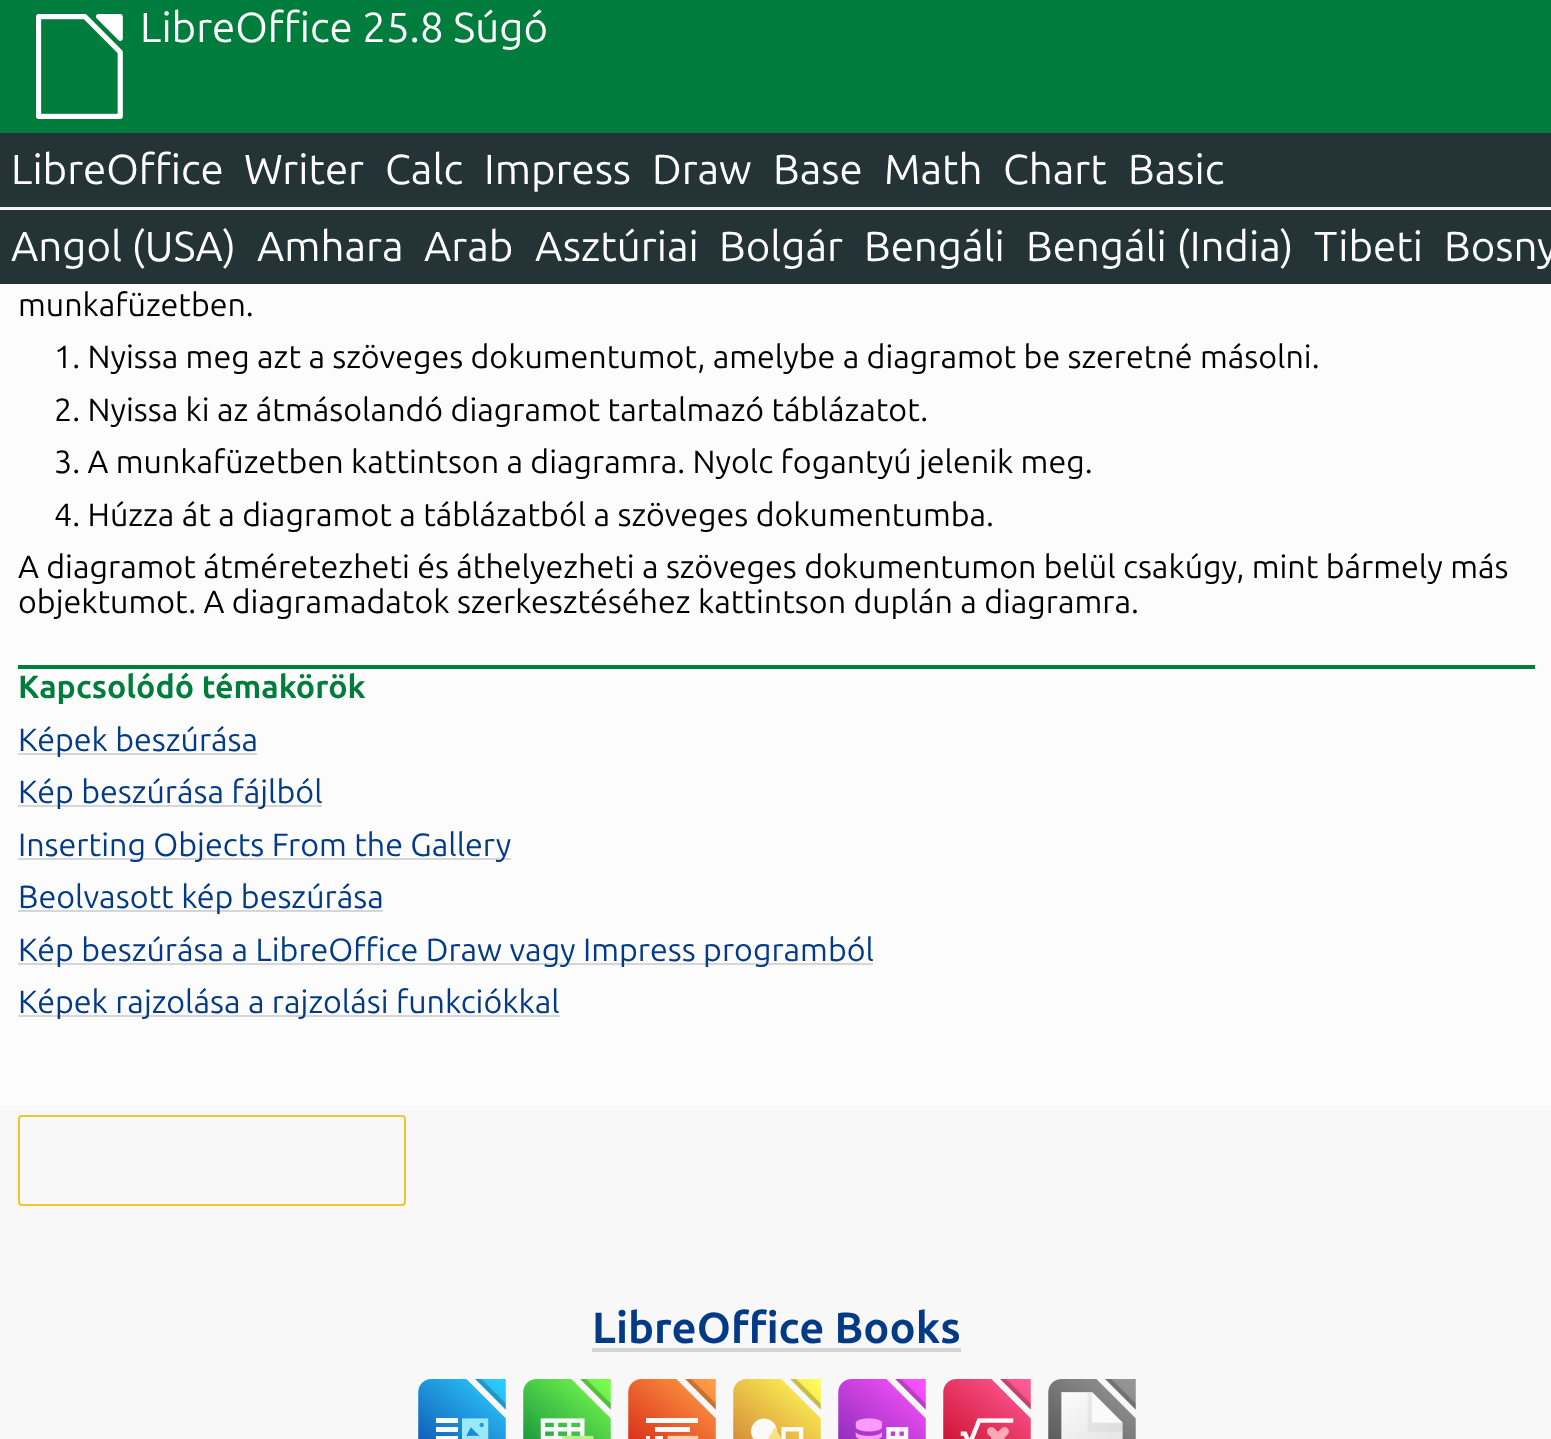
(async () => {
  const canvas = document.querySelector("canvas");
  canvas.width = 1551;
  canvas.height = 1439;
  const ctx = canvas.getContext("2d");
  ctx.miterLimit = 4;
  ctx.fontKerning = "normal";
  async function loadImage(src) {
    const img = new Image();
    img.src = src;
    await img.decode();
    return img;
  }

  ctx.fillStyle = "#f7f8f7";
  ctx.fillRect(0, 0, 1551, 1439);
  ctx.fillStyle = "#007c3c";
  ctx.fillRect(0, 0, 1551, 133);
  ctx.drawImage(await loadImage("img/1.png"), 36, 14, 87, 105);
  for (const [x, y, w, h, color] of [
    [0, 133, 1551, 74, "#233336"],
    [0, 207, 1551, 3, "#f3f3f3"],
    [0, 210, 1551, 74, "#233336"],
    [0, 284, 1551, 822, "#fcfcfc"],
    [18, 665, 1517, 4, "#007c3c"],
    [18, 753, 239, 2, "#d6d6d6"],
    [18, 805, 304, 2, "#d6d6d6"],
    [18, 858, 493, 2, "#d6d6d6"],
    [18, 910, 365, 2, "#d6d6d6"],
    [18, 963, 855, 2, "#d6d6d6"],
    [18, 1015, 542, 2, "#d6d6d6"],
  ]) {
    ctx.fillStyle = color;
    ctx.fillRect(x, y, w, h);
  }
  ctx.beginPath();
  ctx.roundRect(19, 1116, 386, 89, 3);
  ctx.strokeStyle = "#f1c62a";
  ctx.lineWidth = 2;
  ctx.stroke();
  ctx.fillStyle = "#d2d3d2";
  ctx.fillRect(592, 1348, 369, 4);
  ctx.drawImage(await loadImage("img/2.png"), 418, 1379, 88, 60);
  ctx.drawImage(await loadImage("img/3.png"), 523, 1379, 88, 60);
  ctx.drawImage(await loadImage("img/4.png"), 628, 1379, 88, 60);
  ctx.drawImage(await loadImage("img/5.png"), 733, 1379, 88, 60);
  ctx.drawImage(await loadImage("img/6.png"), 838, 1379, 88, 60);
  ctx.drawImage(await loadImage("img/7.png"), 943, 1379, 88, 60);
  ctx.drawImage(await loadImage("img/8.png"), 1048, 1379, 88, 60);
  ctx.font = "42px Ubuntu";
  ctx.fillStyle = "#ffffff";
  for (const [text, x, y] of [
    ["LibreOffice 25.8 Súgó", 140, 42],
    ["LibreOffice", 11, 184],
    ["Writer", 244, 184],
    ["Calc", 385, 184],
    ["Impress", 484, 184],
    ["Draw", 652, 184],
    ["Base", 773, 184],
    ["Math", 884, 184],
    ["Chart", 1003, 184],
    ["Basic", 1128, 184],
    ["Angol (USA)", 11, 261],
    ["Amhara", 257, 261],
    ["Arab", 424, 261],
    ["Asztúriai", 535, 261],
    ["Bolgár", 719, 261],
    ["Bengáli", 864, 261],
    ["Bengáli (India)", 1026, 261],
    ["Tibeti", 1314, 261],
    ["Bosny", 1444, 261],
  ]) {
    ctx.fillText(text, x, y);
  }
  ctx.font = "32.2px Ubuntu";
  ctx.fillStyle = "#000000";
  for (const [text, x, y] of [
    ["munkafüzetben.", 18, 316],
    ["1. Nyissa meg azt a szöveges dokumentumot, amelybe a diagramot be szeretné másolni.", 54, 368],
    ["2. Nyissa ki az átmásolandó diagramot tartalmazó táblázatot.", 54, 421],
    ["3. A munkafüzetben kattintson a diagramra. Nyolc fogantyú jelenik meg.", 54, 473],
    ["4. Húzza át a diagramot a táblázatból a szöveges dokumentumba.", 54, 526],
    ["A diagramot átméretezheti és áthelyezheti a szöveges dokumentumon belül csakúgy, mint bármely más", 18, 578],
    ["objektumot. A diagramadatok szerkesztéséhez kattintson duplán a diagramra.", 18, 613],
  ]) {
    ctx.fillText(text, x, y);
  }
  ctx.font = "bold 32.2px Ubuntu";
  ctx.fillStyle = "#007c3c";
  ctx.fillText("Kapcsolódó témakörök", 18, 698);
  ctx.font = "32.2px Ubuntu";
  ctx.fillStyle = "#023a86";
  for (const [text, x, y] of [
    ["Képek beszúrása", 18, 751],
    ["Kép beszúrása fájlból", 18, 803],
    ["Inserting Objects From the Gallery", 18, 856],
    ["Beolvasott kép beszúrása", 18, 908],
    ["Kép beszúrása a LibreOffice Draw vagy Impress programból", 18, 961],
    ["Képek rajzolása a rajzolási funkciókkal", 18, 1013],
  ]) {
    ctx.fillText(text, x, y);
  }
  ctx.font = "bold 43.5px Ubuntu";
  ctx.fillText("LibreOffice Books", 592, 1343);
})();
